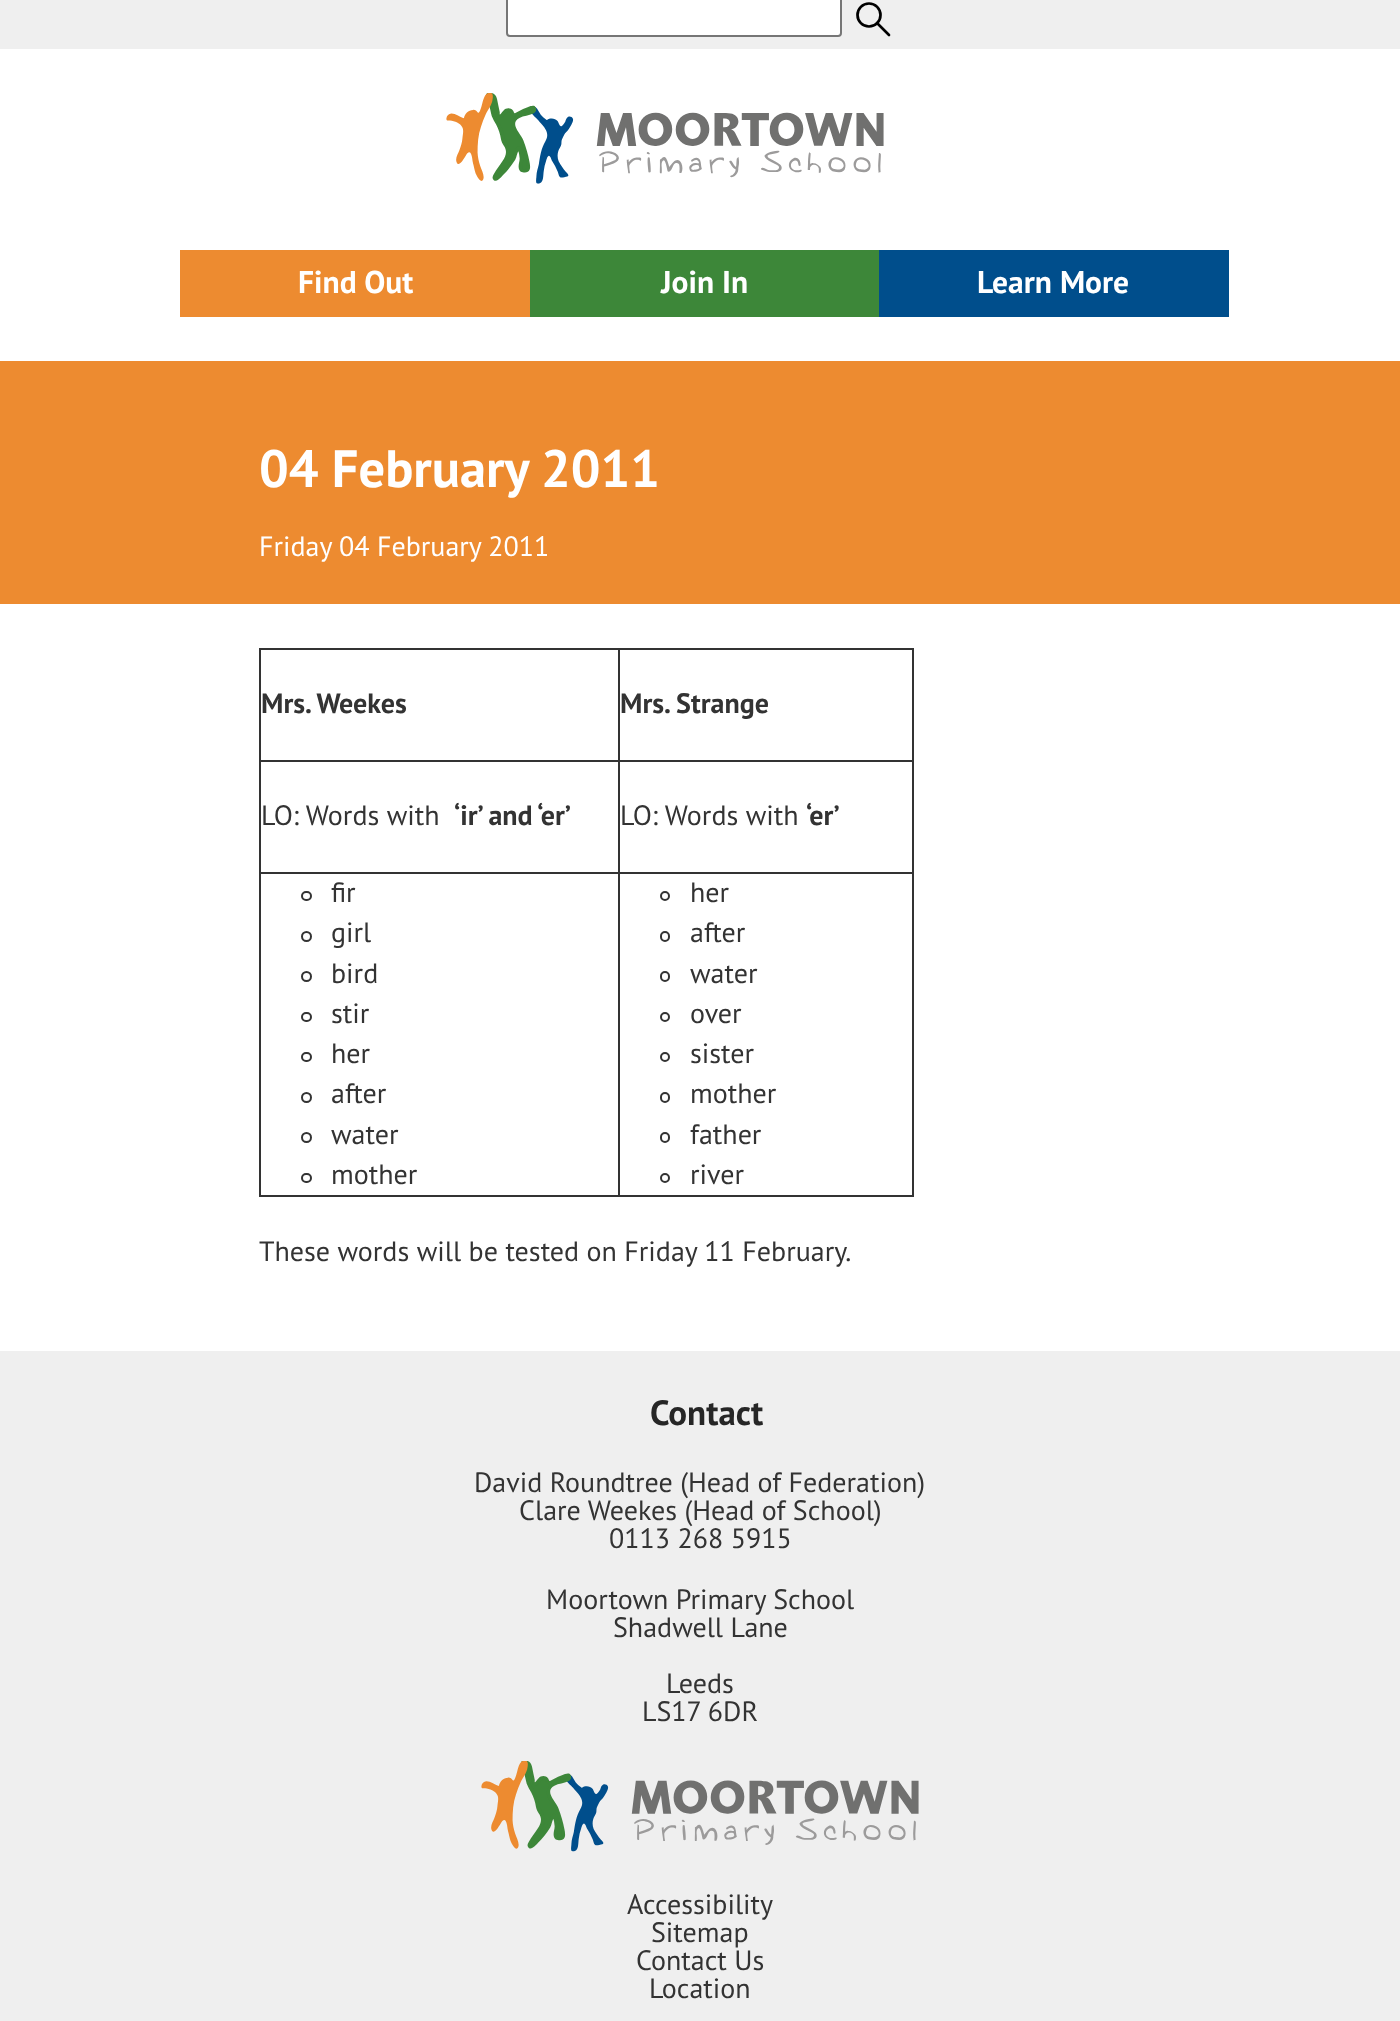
(async () => {
  const canvas = document.querySelector("canvas");
  canvas.width = 1400;
  canvas.height = 2021;
  const ctx = canvas.getContext("2d");
  ctx.miterLimit = 4;
  ctx.fontKerning = "normal";
  async function loadImage(src) {
    const img = new Image();
    img.src = src;
    await img.decode();
    return img;
  }
  let path;

  ctx.fillStyle = "#efefef";
  ctx.fillRect(0, 0, 1400, 2021);
  ctx.fillStyle = "#ffffff";
  ctx.beginPath();
  ctx.roundRect(507, -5, 334, 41, 3);
  ctx.fill();
  ctx.strokeStyle = "#767676";
  ctx.lineWidth = 2;
  ctx.stroke();
  path = new Path2D("M877 23L889 35");
  ctx.strokeStyle = "#000000";
  ctx.lineWidth = 2.7;
  ctx.lineCap = "round";
  ctx.lineJoin = "round";
  ctx.stroke(path);
  ctx.beginPath();
  ctx.arc(869, 15, 11.5, 0, Math.PI * 2);
  ctx.stroke();
  ctx.fillRect(0, 49, 1400, 312);
  ctx.drawImage(await loadImage("img/1.png"), 446, 93, 438, 91);
  for (const [x, y, w, h, color] of [
    [180, 250, 350, 67, "#ed8b30"],
    [530, 250, 349, 67, "#3d8739"],
    [879, 250, 350, 67, "#004e8c"],
    [0, 361, 1400, 243, "#ed8b30"],
    [0, 604, 1400, 747, "#ffffff"],
    [618, 648, 296, 2, "#333333"],
    [618, 760, 296, 2, "#333333"],
    [618, 872, 296, 2, "#333333"],
    [912, 872, 2, 325, "#333333"],
    [618, 1195, 296, 2, "#333333"],
    [618, 872, 2, 325, "#333333"],
    [259, 872, 361, 2, "#333333"],
    [618, 760, 2, 113, "#333333"],
    [259, 760, 361, 2, "#333333"],
    [618, 648, 2, 113, "#333333"],
    [259, 648, 361, 2, "#333333"],
    [259, 1195, 361, 2, "#333333"],
    [259, 872, 2, 325, "#333333"],
    [259, 760, 2, 113, "#333333"],
    [259, 648, 2, 113, "#333333"],
    [912, 760, 2, 113, "#333333"],
    [912, 648, 2, 113, "#333333"],
  ]) {
    ctx.fillStyle = color;
    ctx.fillRect(x, y, w, h);
  }
  ctx.beginPath();
  ctx.roundRect(302, 892, 9, 8, 4);
  ctx.strokeStyle = "#333333";
  ctx.lineWidth = 2;
  ctx.lineJoin = "miter";
  ctx.stroke();
  ctx.beginPath();
  ctx.arc(306.5, 936.5, 4.5, 0, Math.PI * 2);
  ctx.stroke();
  ctx.beginPath();
  ctx.arc(306.5, 976.5, 4.5, 0, Math.PI * 2);
  ctx.stroke();
  ctx.beginPath();
  ctx.roundRect(302, 1013, 9, 8, 4);
  ctx.stroke();
  ctx.beginPath();
  ctx.roundRect(302, 1053, 9, 8, 4);
  ctx.stroke();
  ctx.beginPath();
  ctx.arc(306.5, 1097.5, 4.5, 0, Math.PI * 2);
  ctx.stroke();
  ctx.beginPath();
  ctx.arc(306.5, 1137.5, 4.5, 0, Math.PI * 2);
  ctx.stroke();
  ctx.beginPath();
  ctx.roundRect(302, 1174, 9, 8, 4);
  ctx.stroke();
  ctx.beginPath();
  ctx.arc(665, 896, 4, 0, Math.PI * 2);
  ctx.stroke();
  ctx.beginPath();
  ctx.roundRect(661, 932, 8, 9, 4);
  ctx.stroke();
  ctx.beginPath();
  ctx.roundRect(661, 972, 8, 9, 4);
  ctx.stroke();
  ctx.beginPath();
  ctx.arc(665, 1017, 4, 0, Math.PI * 2);
  ctx.stroke();
  ctx.beginPath();
  ctx.arc(665, 1057, 4, 0, Math.PI * 2);
  ctx.stroke();
  ctx.beginPath();
  ctx.roundRect(661, 1093, 8, 9, 4);
  ctx.stroke();
  ctx.beginPath();
  ctx.roundRect(661, 1133, 8, 9, 4);
  ctx.stroke();
  ctx.beginPath();
  ctx.arc(665, 1178, 4, 0, Math.PI * 2);
  ctx.stroke();
  ctx.drawImage(await loadImage("img/2.png"), 481, 1761, 438, 91);
  ctx.font = "bold 31.5px PT Sans";
  ctx.fillStyle = "#ffffff";
  for (const [text, x, y] of [
    ["Find Out", 298, 293],
    ["Join In", 661, 293],
    ["Learn More", 977, 293],
  ]) {
    ctx.fillText(text, x, y);
  }
  ctx.font = "bold 52.5px PT Sans";
  ctx.fillText("04 February 2011", 259, 487);
  ctx.font = "28px PT Sans";
  ctx.fillText("Friday 04 February 2011", 259, 556);
  ctx.font = "bold 28px PT Sans";
  ctx.fillStyle = "#333333";
  ctx.fillText("Mrs. Weekes", 261, 713);
  ctx.fillText("Mrs. Strange", 620, 713);
  ctx.font = "28px PT Sans";
  ctx.fillText("LO: Words with", 261, 825);
  ctx.font = "bold 28px PT Sans";
  ctx.fillText("‘ir’ and ‘er’", 454, 825);
  ctx.font = "28px PT Sans";
  ctx.fillText("LO: Words with", 620, 825);
  ctx.font = "bold 28px PT Sans";
  ctx.fillText("‘er’", 806, 825);
  ctx.font = "28px PT Sans";
  for (const [text, x, y] of [
    ["fir", 331, 902],
    ["girl", 331, 942],
    ["bird", 331, 983],
    ["stir", 331, 1023],
    ["her", 331, 1063],
    ["after", 331, 1103],
    ["water", 331, 1144],
    ["mother", 331, 1184],
    ["her", 690, 902],
    ["after", 690, 942],
    ["water", 690, 983],
    ["over", 690, 1023],
    ["sister", 690, 1063],
    ["mother", 690, 1103],
    ["father", 690, 1144],
    ["river", 690, 1184],
    ["These words will be tested on Friday 11 February.", 259, 1261],
  ]) {
    ctx.fillText(text, x, y);
  }
  ctx.font = "bold 35px PT Sans";
  ctx.fillStyle = "#262626";
  ctx.fillText("Contact", 650, 1425);
  ctx.font = "28px PT Sans";
  ctx.fillStyle = "#333333";
  for (const [text, x, y] of [
    ["David Roundtree (Head of Federation)", 474, 1492],
    ["Clare Weekes (Head of School)", 519, 1520],
    ["0113 268 5915", 609, 1548],
    ["Moortown Primary School", 546, 1609],
    ["Shadwell Lane", 613, 1637],
    ["Leeds", 666, 1693],
    ["LS17 6DR", 642, 1721],
    ["Accessibility", 627, 1914],
    ["Sitemap", 651, 1942],
    ["Contact Us", 636, 1970],
    ["Location", 649, 1998],
  ]) {
    ctx.fillText(text, x, y);
  }
})();
